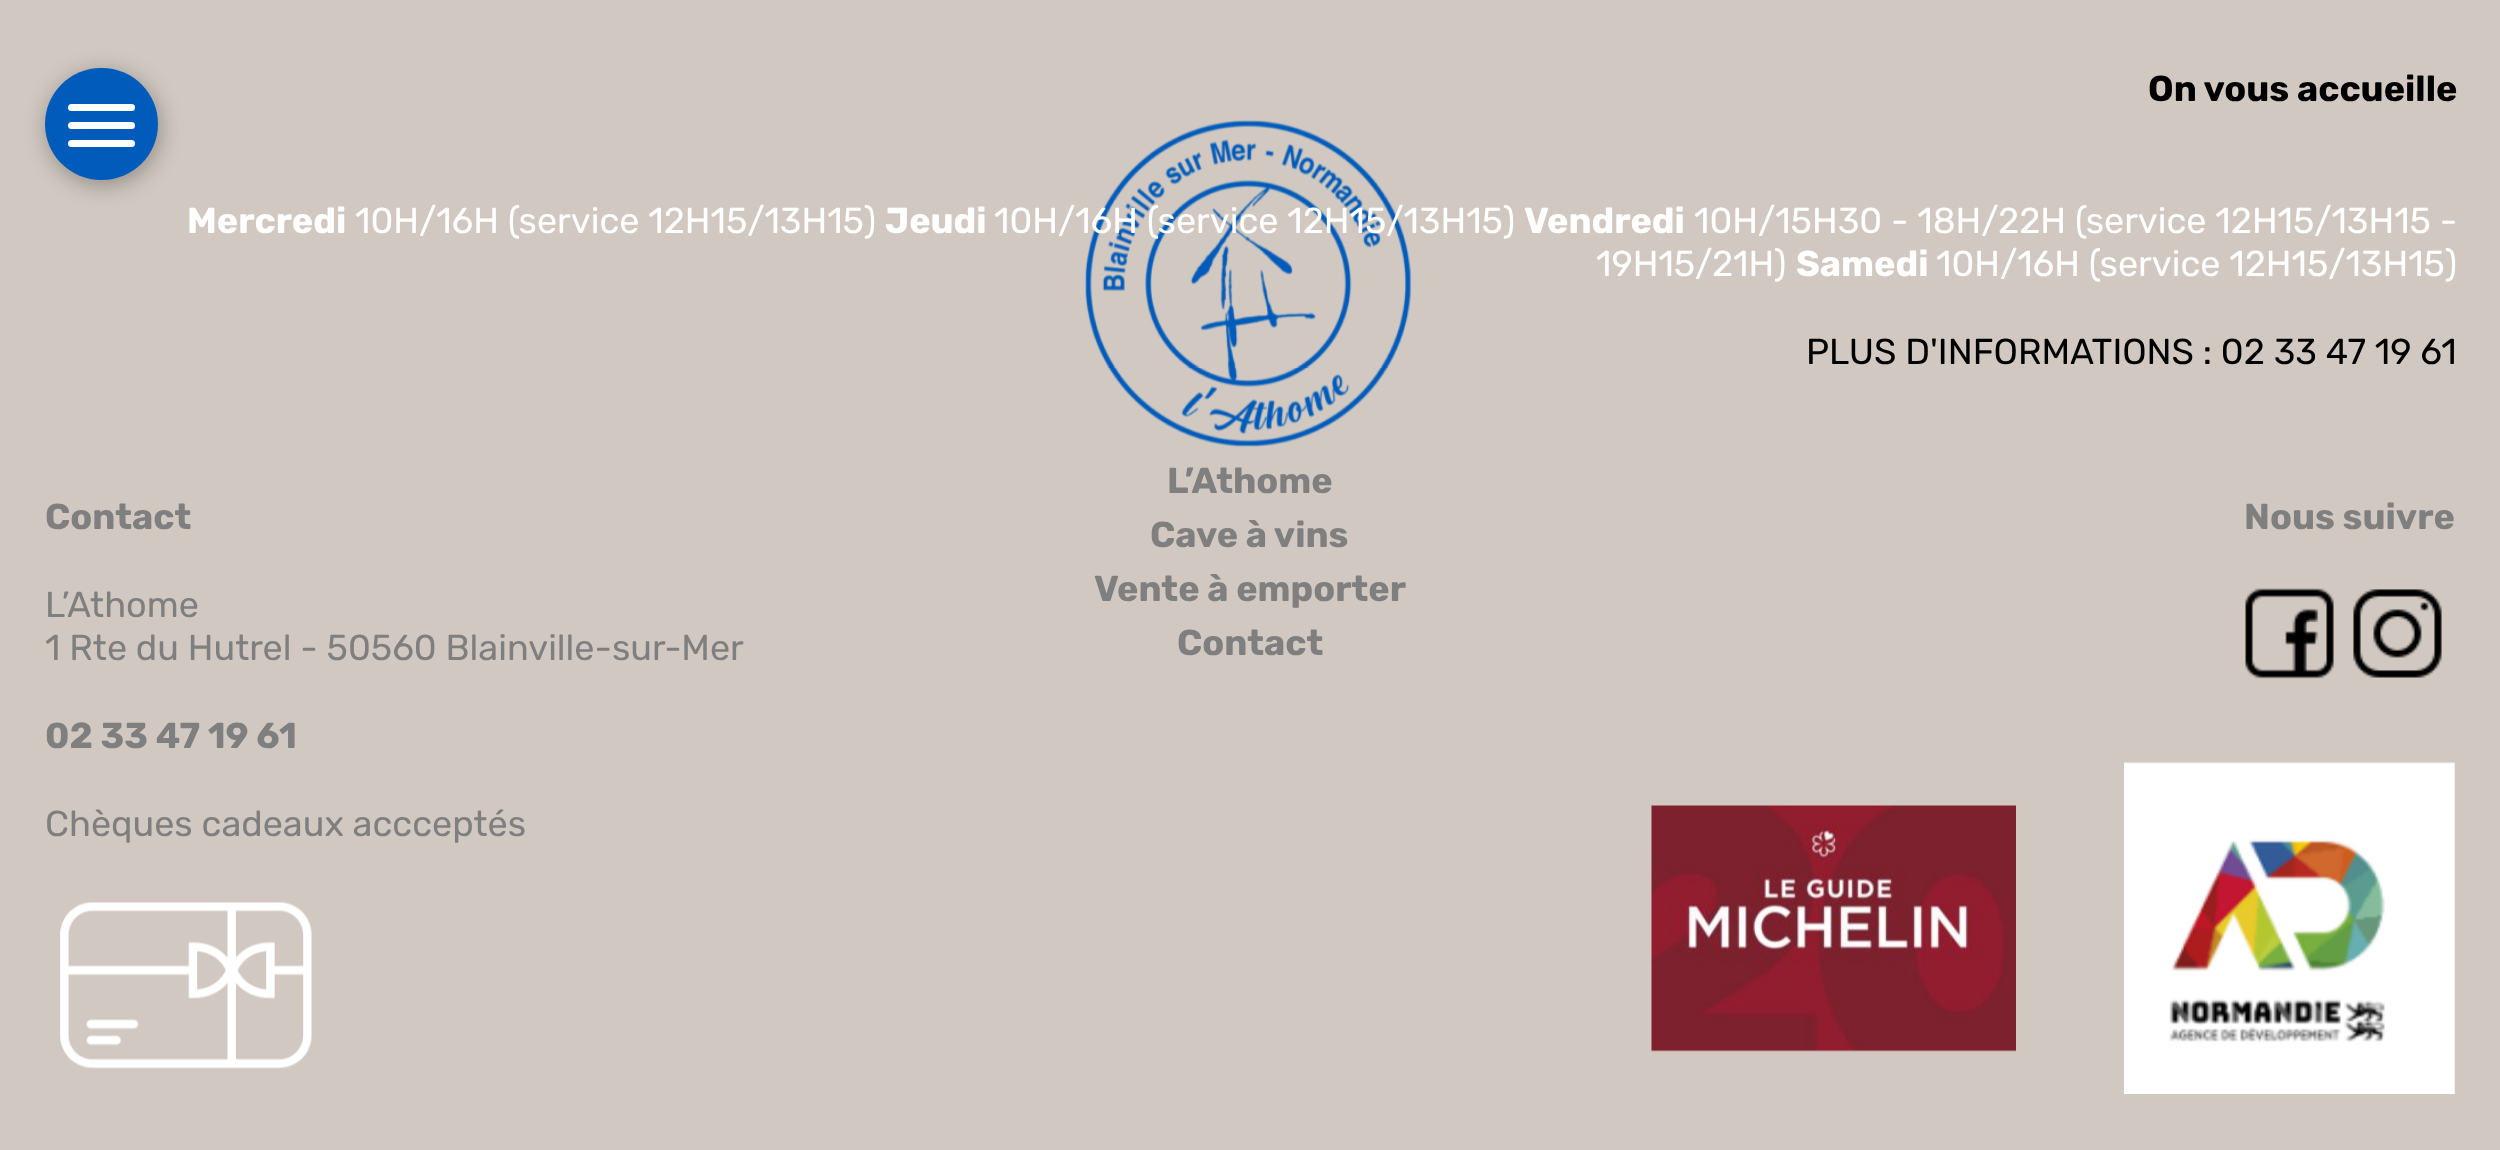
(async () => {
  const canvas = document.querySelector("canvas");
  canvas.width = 2500;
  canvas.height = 1150;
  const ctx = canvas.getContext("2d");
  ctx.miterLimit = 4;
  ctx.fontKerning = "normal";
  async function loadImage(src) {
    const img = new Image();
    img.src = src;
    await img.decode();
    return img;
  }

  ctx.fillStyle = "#d1c9c1";
  ctx.fillRect(0, 0, 2500, 1150);
  ctx.fillStyle = "rgba(0, 0, 0, 0.3)";
  ctx.filter = "blur(11px)";
  ctx.beginPath();
  ctx.roundRect(47, 72, 113, 113, 56.5);
  ctx.fill();
  ctx.filter = "none";
  ctx.fillStyle = "#005bbb";
  ctx.beginPath();
  ctx.roundRect(45, 68, 113, 112, 56);
  ctx.fill();
  ctx.fillStyle = "#ffffff";
  ctx.beginPath();
  ctx.roundRect(68, 104, 67, 7, 3.5);
  ctx.fill();
  ctx.beginPath();
  ctx.roundRect(68, 122, 67, 7, 3.5);
  ctx.fill();
  ctx.beginPath();
  ctx.roundRect(68, 140, 67, 7, 3.5);
  ctx.fill();
  ctx.drawImage(await loadImage("img/1.png"), 60, 902, 252, 167);
  ctx.drawImage(await loadImage("img/2.png"), 1085, 120, 327, 327);
  ctx.drawImage(await loadImage("img/3.png"), 2245, 588, 89, 91);
  ctx.drawImage(await loadImage("img/4.png"), 2353, 589, 89, 89);
  ctx.drawImage(await loadImage("img/5.png"), 1651, 805, 365, 247);
  ctx.drawImage(await loadImage("img/6.png"), 2124, 762, 331, 332);
  ctx.font = "bold 36px Rubik";
  ctx.fillStyle = "#000000";
  ctx.fillText("On vous accueille", 2148, 101);
  ctx.fillStyle = "#ffffff";
  ctx.fillText("Mercredi", 187, 233);
  ctx.font = "36px Rubik";
  ctx.fillText("10H/16H (service 12H15/13H15)", 355, 233);
  ctx.font = "bold 36px Rubik";
  ctx.fillText("Jeudi", 885, 233);
  ctx.font = "36px Rubik";
  ctx.fillText("10H/16H (service 12H15/13H15)", 994, 233);
  ctx.font = "bold 36px Rubik";
  ctx.fillText("Vendredi", 1524, 233);
  ctx.font = "36px Rubik";
  ctx.fillText("10H/15H30 - 18H/22H (service 12H15/13H15 -", 1694, 233);
  ctx.fillText("19H15/21H)", 1596, 276);
  ctx.font = "bold 36px Rubik";
  ctx.fillText("Samedi", 1796, 276);
  ctx.font = "36px Rubik";
  ctx.fillText("10H/16H (service 12H15/13H15)", 1936, 276);
  ctx.fillStyle = "#000000";
  ctx.fillText("PLUS D'INFORMATIONS : 02 33 47 19 61", 1806, 364);
  ctx.font = "bold 36px Rubik";
  ctx.fillStyle = "#7f7f7f";
  ctx.fillText("Contact", 45, 529);
  ctx.font = "36px Rubik";
  ctx.fillText("L’Athome", 45, 617);
  ctx.fillText("1 Rte du Hutrel - 50560 Blainville-sur-Mer", 45, 660);
  ctx.font = "bold 36px Rubik";
  ctx.fillText("02 33 47 19 61", 45, 748);
  ctx.font = "36px Rubik";
  ctx.fillText("Chèques cadeaux accceptés", 45, 836);
  ctx.font = "bold 36px Rubik";
  for (const [text, x, y] of [
    ["L’Athome", 1167, 493],
    ["Cave à vins", 1150, 547],
    ["Vente à emporter", 1094, 601],
    ["Contact", 1177, 655],
    ["Nous suivre", 2244, 529],
  ]) {
    ctx.fillText(text, x, y);
  }
})();
